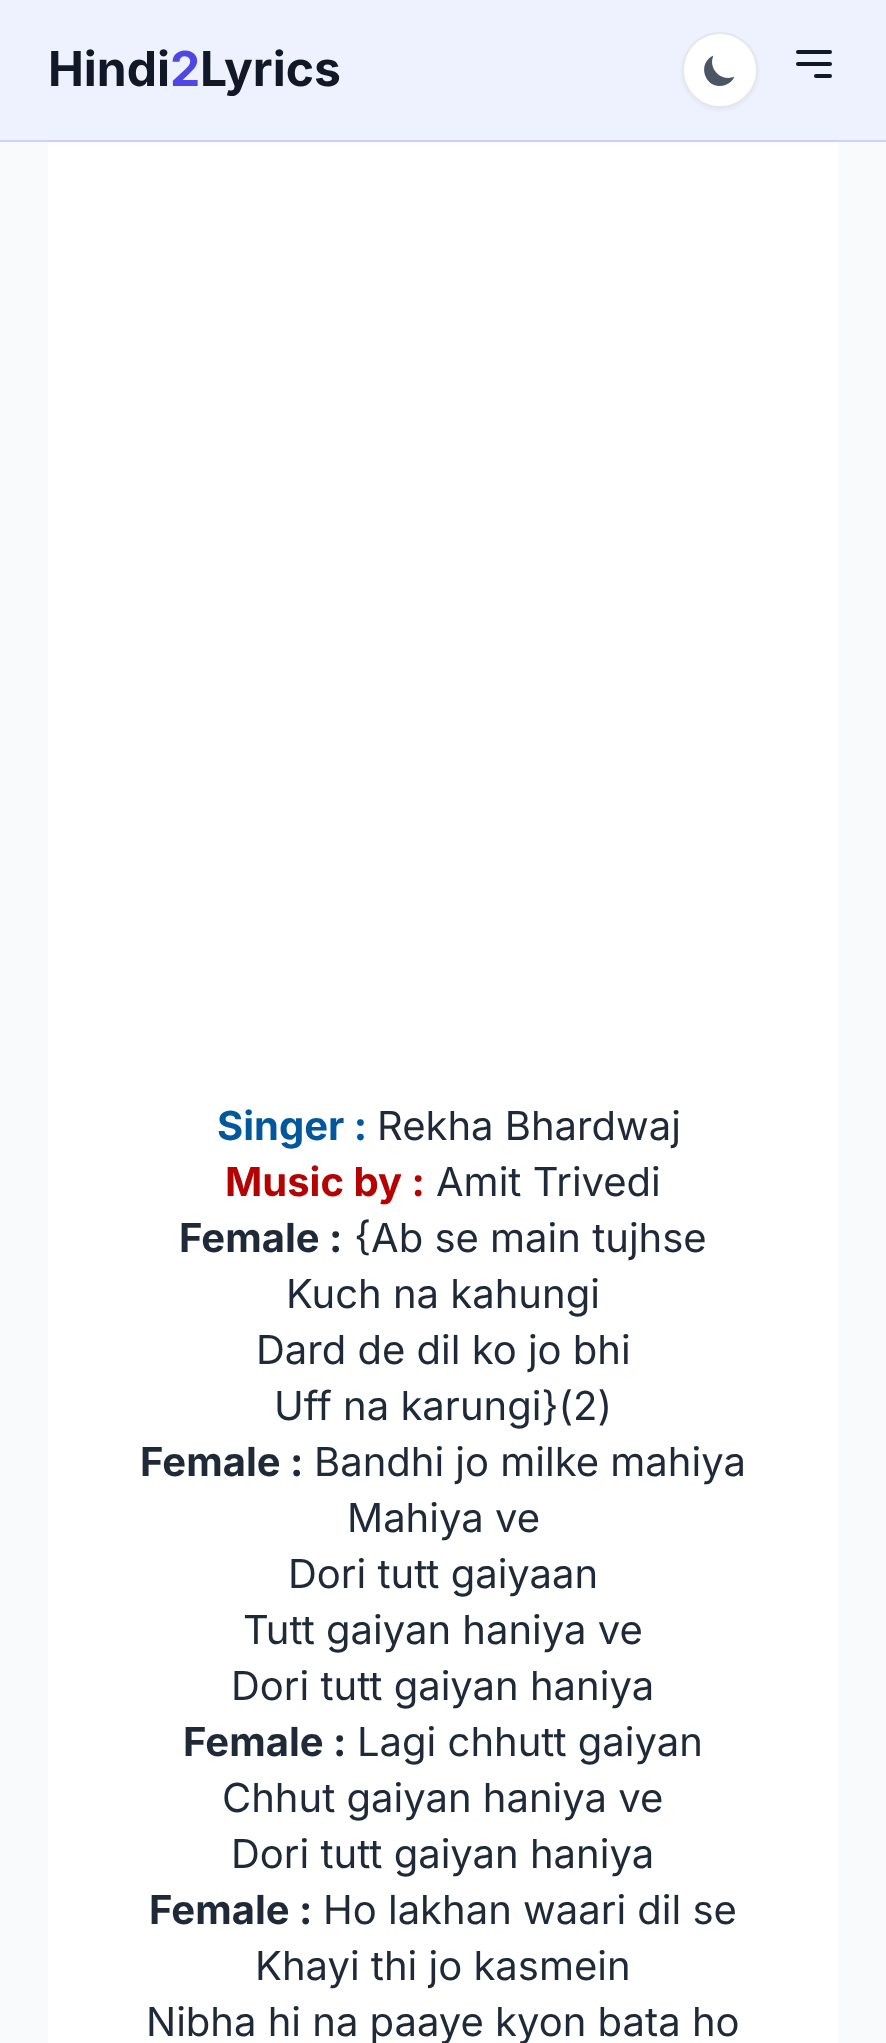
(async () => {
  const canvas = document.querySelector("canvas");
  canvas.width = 886;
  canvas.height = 2043;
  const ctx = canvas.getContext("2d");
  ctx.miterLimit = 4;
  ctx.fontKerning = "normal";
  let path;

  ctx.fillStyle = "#f9fafb";
  ctx.fillRect(0, 0, 886, 2043);
  ctx.fillStyle = "#eef2ff";
  ctx.fillRect(0, 0, 886, 140);
  ctx.fillStyle = "#c7d2fe";
  ctx.fillRect(0, 140, 886, 2);
  ctx.fillStyle = "rgba(0, 0, 0, 0.05)";
  ctx.filter = "blur(2px)";
  ctx.beginPath();
  ctx.roundRect(682, 34, 76, 76, 38);
  ctx.fill();
  ctx.filter = "none";
  ctx.fillStyle = "#ffffff";
  ctx.beginPath();
  ctx.arc(720, 70, 37, 0, Math.PI * 2);
  ctx.fill();
  ctx.strokeStyle = "#e5e7eb";
  ctx.lineWidth = 2;
  ctx.stroke();
  ctx.fillStyle = "#4b5563";
  path = new Path2D("M734.5 76.5C721.5 82.5 707.5 68.5 713.5 55.5C695 64 706.5 92 725.5 85C729.5 83.5 733 80.5 734.5 76.5Z");
  ctx.fill(path);
  path = new Path2D("M798 52H830M798 64H830M816 76H830");
  ctx.strokeStyle = "#111827";
  ctx.lineWidth = 4;
  ctx.lineCap = "round";
  ctx.lineJoin = "round";
  ctx.stroke(path);
  ctx.fillStyle = "#ffffff";
  ctx.fillRect(48, 142, 790, 1901);
  ctx.font = "bold 48px Inter";
  ctx.fillStyle = "#111827";
  ctx.fillText("Hindi", 48, 86);
  ctx.fillStyle = "#4f46e5";
  ctx.fillText("2", 170, 86);
  ctx.fillStyle = "#111827";
  ctx.fillText("Lyrics", 200, 86);
  ctx.font = "bold 40px Inter";
  ctx.fillStyle = "#03579c";
  ctx.fillText("Singer :", 217, 1140);
  ctx.font = "40px Inter";
  ctx.fillStyle = "#1f2937";
  ctx.fillText("Rekha Bhardwaj", 377, 1140);
  ctx.font = "bold 40px Inter";
  ctx.fillStyle = "#b50202";
  ctx.fillText("Music by :", 225, 1196);
  ctx.font = "40px Inter";
  ctx.fillStyle = "#1f2937";
  ctx.fillText("Amit Trivedi", 436, 1196);
  ctx.font = "bold 40px Inter";
  ctx.fillText("Female :", 179, 1252);
  ctx.font = "40px Inter";
  for (const [text, x, y] of [
    ["{Ab se main tujhse", 354, 1252],
    ["Kuch na kahungi", 286, 1308],
    ["Dard de dil ko jo bhi", 256, 1364],
    ["Uff na karungi}(2)", 274, 1420],
  ]) {
    ctx.fillText(text, x, y);
  }
  ctx.font = "bold 40px Inter";
  ctx.fillText("Female :", 140, 1476);
  ctx.font = "40px Inter";
  for (const [text, x, y] of [
    ["Bandhi jo milke mahiya", 314, 1476],
    ["Mahiya ve", 347, 1532],
    ["Dori tutt gaiyaan", 288, 1588],
    ["Tutt gaiyan haniya ve", 243, 1644],
    ["Dori tutt gaiyan haniya", 231, 1700],
  ]) {
    ctx.fillText(text, x, y);
  }
  ctx.font = "bold 40px Inter";
  ctx.fillText("Female :", 183, 1756);
  ctx.font = "40px Inter";
  for (const [text, x, y] of [
    ["Lagi chhutt gaiyan", 357, 1756],
    ["Chhut gaiyan haniya ve", 222, 1812],
    ["Dori tutt gaiyan haniya", 231, 1868],
  ]) {
    ctx.fillText(text, x, y);
  }
  ctx.font = "bold 40px Inter";
  ctx.fillText("Female :", 149, 1924);
  ctx.font = "40px Inter";
  for (const [text, x, y] of [
    ["Ho lakhan waari dil se", 323, 1924],
    ["Khayi thi jo kasmein", 255, 1980],
    ["Nibha hi na paaye kyon bata ho", 146, 2036],
  ]) {
    ctx.fillText(text, x, y);
  }
})();
